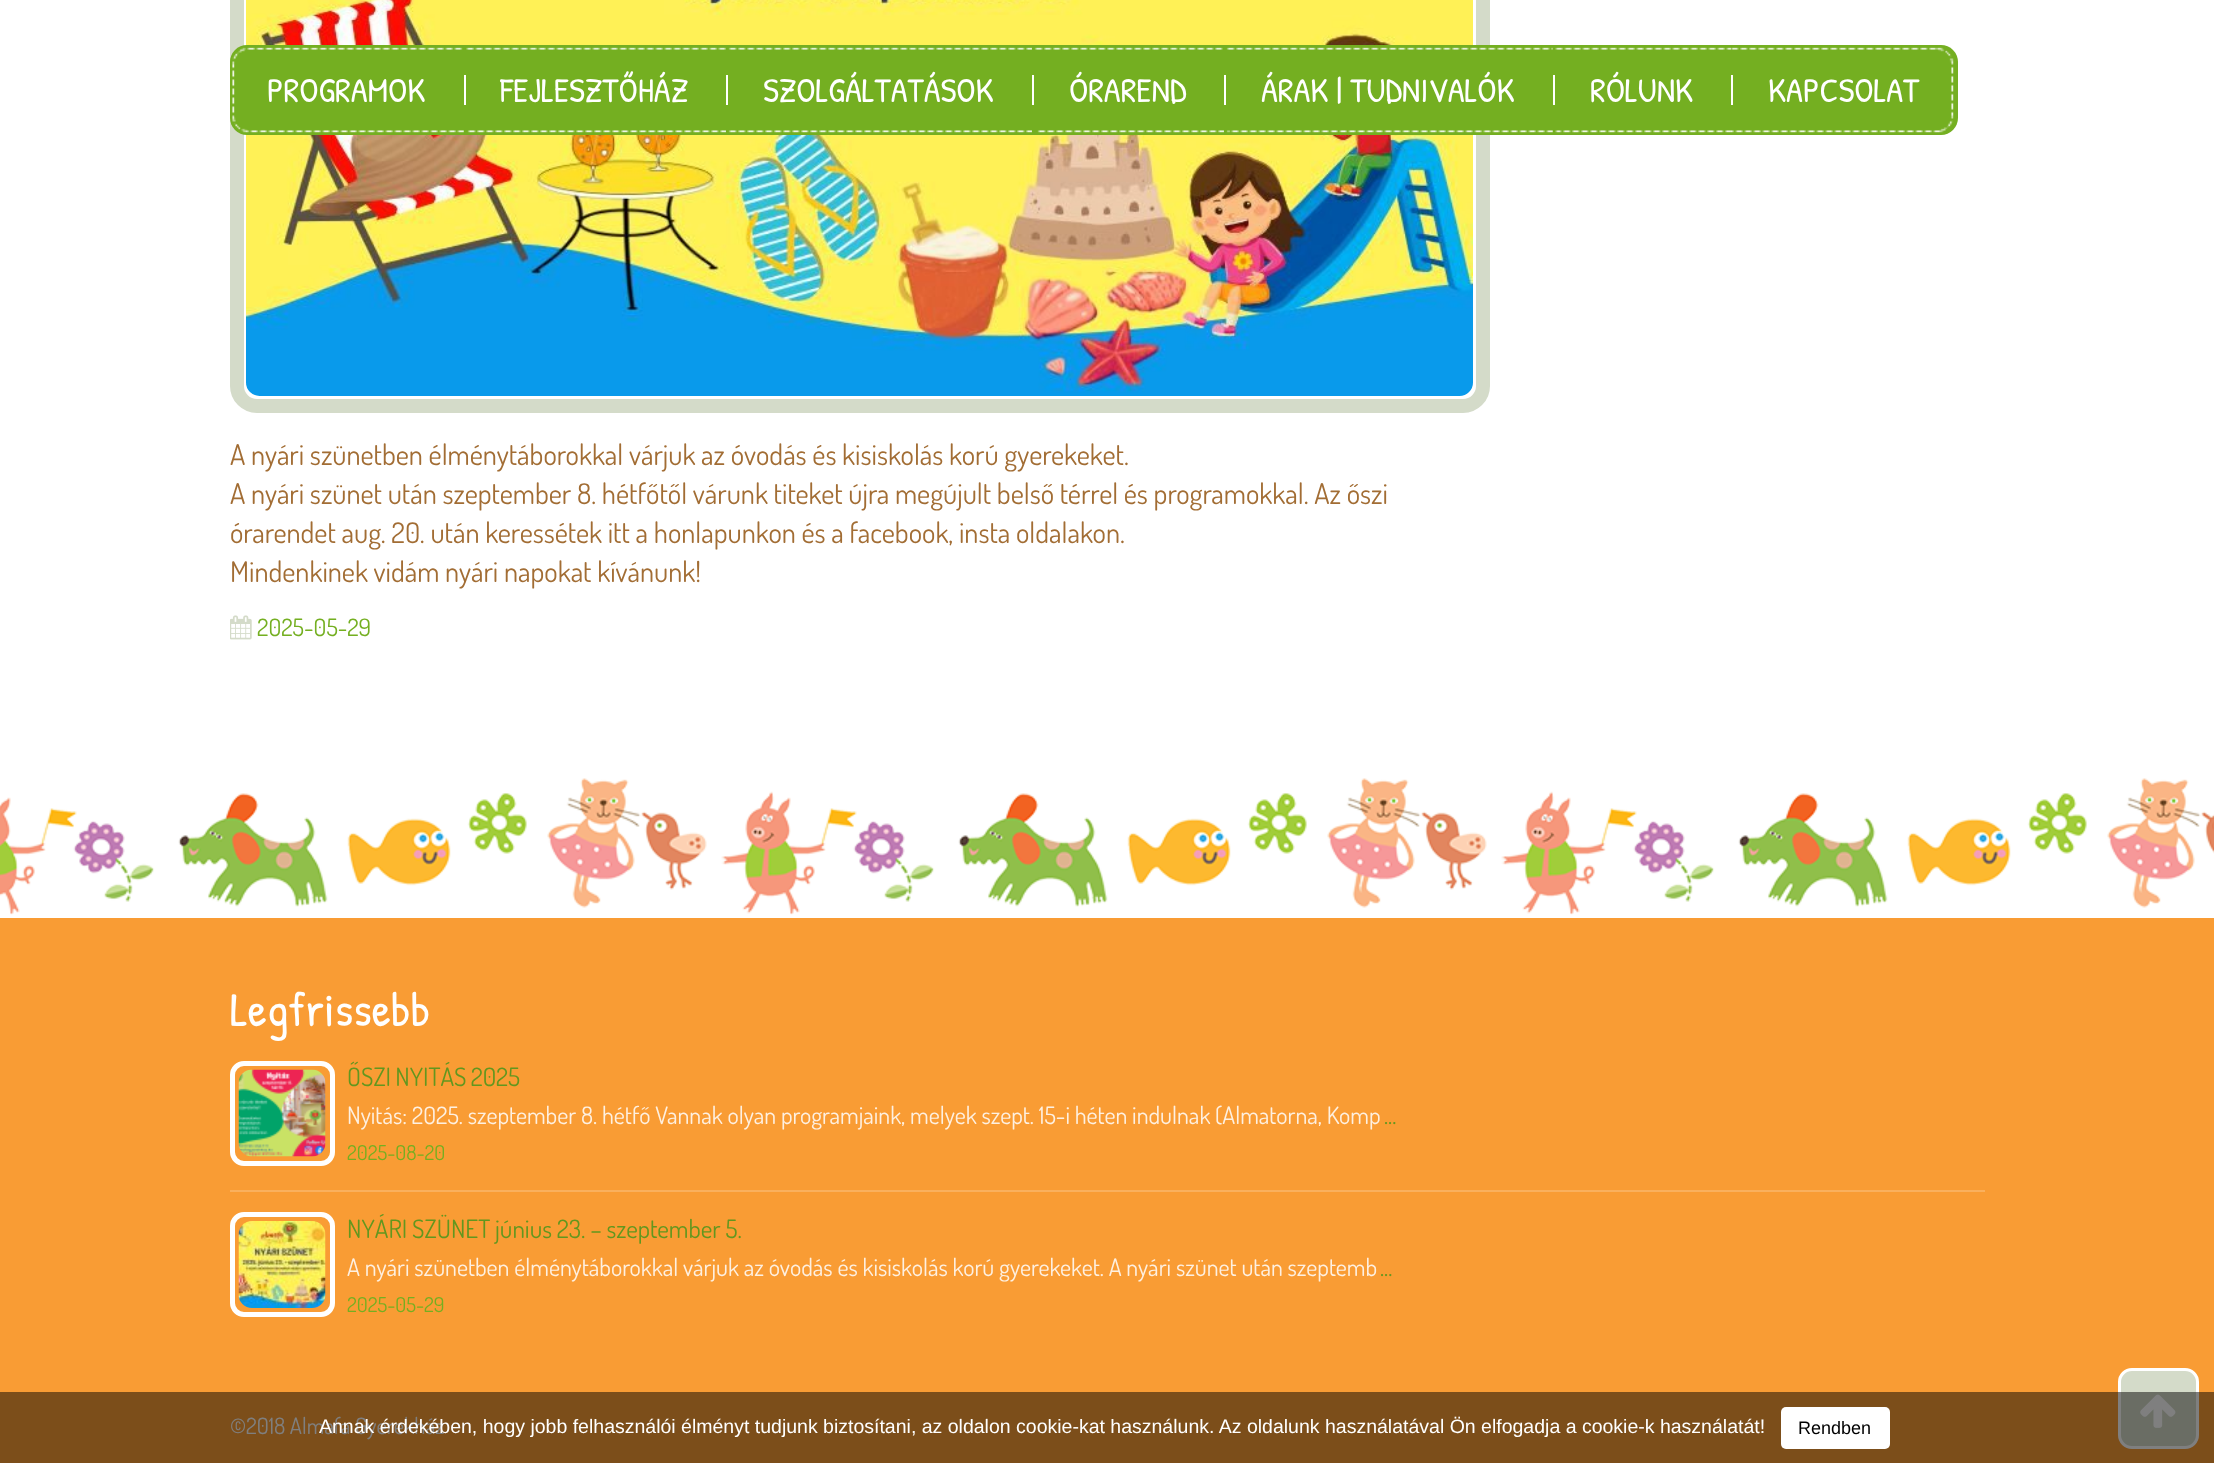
(async () => {
  const canvas = document.querySelector("canvas");
  canvas.width = 2214;
  canvas.height = 1463;
  const ctx = canvas.getContext("2d");
  ctx.miterLimit = 4;
  ctx.fontKerning = "normal";
  async function loadImage(src) {
    const img = new Image();
    img.src = src;
    await img.decode();
    return img;
  }

  ctx.fillStyle = "#ffffff";
  ctx.fillRect(0, 0, 2214, 1463);
  ctx.beginPath();
  ctx.roundRect(237, -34, 1246, 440, 20);
  ctx.strokeStyle = "#d4dbc9";
  ctx.lineWidth = 14;
  ctx.stroke();
  ctx.drawImage(await loadImage("img/8.png"), 246, 0, 1227, 396);
  ctx.fillStyle = "#74af21";
  ctx.beginPath();
  ctx.roundRect(230, 45, 234, 90, [17, 0, 0, 17]);
  ctx.fill();
  for (const [x, y, w, h, color] of [
    [464, 45, 1267, 90, "#74af21"],
    [464, 75, 2, 30, "#ffffff"],
    [726, 75, 2, 30, "#ffffff"],
    [1032, 75, 2, 30, "#ffffff"],
    [1224, 75, 2, 30, "#ffffff"],
    [1553, 75, 2, 30, "#ffffff"],
  ]) {
    ctx.fillStyle = color;
    ctx.fillRect(x, y, w, h);
  }
  ctx.fillStyle = "#74af21";
  ctx.beginPath();
  ctx.roundRect(1731, 45, 227, 90, [0, 17, 17, 0]);
  ctx.fill();
  ctx.fillStyle = "#ffffff";
  ctx.fillRect(1731, 75, 2, 30);
  ctx.drawImage(await loadImage("img/9.png"), 230, 615, 22, 25);
  ctx.drawImage(await loadImage("img/10.png"), 0, 778, 2214, 137);
  ctx.fillStyle = "#f99c34";
  ctx.fillRect(0, 918, 2214, 545);
  ctx.fillStyle = "#fab05d";
  ctx.fillRect(230, 1190, 1755, 2);
  ctx.beginPath();
  ctx.roundRect(232.5, 1063.5, 100, 100, 11.5);
  ctx.strokeStyle = "#ffffff";
  ctx.lineWidth = 5;
  ctx.stroke();
  ctx.drawImage(await loadImage("img/11.png"), 238, 1069, 88, 88);
  ctx.beginPath();
  ctx.roundRect(232.5, 1214.5, 100, 100, 11.5);
  ctx.stroke();
  ctx.drawImage(await loadImage("img/12.png"), 238, 1221, 88, 87);
  ctx.fillStyle = "#d4dbc9";
  ctx.beginPath();
  ctx.roundRect(2119.5, 1369.5, 78, 78, 12.5);
  ctx.fill();
  ctx.lineWidth = 3;
  ctx.stroke();
  ctx.drawImage(await loadImage("img/13.png"), 2140, 1394, 36, 34);
  ctx.font = "34.5px Patrick Hand";
  ctx.fillStyle = "#ffffff";
  ctx.fillText("PROGRAMOK", 267, 102);
  ctx.drawImage(await loadImage("img/1.png"), 232, 47, 232, 86);
  ctx.fillText("FEJLESZTŐHÁZ", 500, 102);
  ctx.drawImage(await loadImage("img/2.png"), 466, 47, 260, 86);
  ctx.fillText("SZOLGÁLTATÁSOK", 763, 102);
  ctx.drawImage(await loadImage("img/3.png"), 728, 47, 304, 86);
  ctx.fillText("ÓRAREND", 1069, 102);
  ctx.drawImage(await loadImage("img/4.png"), 1034, 47, 190, 86);
  ctx.fillText("ÁRAK | TUDNIVALÓK", 1261, 102);
  ctx.drawImage(await loadImage("img/5.png"), 1226, 47, 327, 86);
  ctx.fillText("RÓLUNK", 1590, 102);
  ctx.drawImage(await loadImage("img/6.png"), 1555, 47, 176, 86);
  ctx.fillText("KAPCSOLAT", 1768, 102);
  ctx.drawImage(await loadImage("img/7.png"), 1731, 47, 223, 86);
  ctx.font = "28.5px Dosis";
  ctx.fillStyle = "#a26d34";
  for (const [text, x, y] of [
    ["A nyári szünetben élménytáborokkal várjuk az óvodás és kisiskolás korú gyerekeket.", 230, 465],
    ["A nyári szünet után szeptember 8. hétfőtől várunk titeket újra megújult belső térrel és programokkal. Az őszi", 230, 504],
    ["órarendet aug. 20. után keressétek itt a honlapunkon és a facebook, insta oldalakon.", 230, 543],
    ["Mindenkinek vidám nyári napokat kívánunk!", 230, 582],
  ]) {
    ctx.fillText(text, x, y);
  }
  ctx.font = "24px Dosis";
  ctx.fillStyle = "#74af21";
  ctx.fillText("2025-05-29", 257, 636);
  ctx.font = "48px Patrick Hand";
  ctx.fillStyle = "#ffffff";
  ctx.fillText("Legfrissebb", 230, 1026);
  ctx.wordSpacing = "-1px";
  ctx.font = "25.25px Dosis";
  ctx.fillStyle = "#62971f";
  ctx.fillText("ŐSZI NYITÁS 2025", 347, 1086);
  ctx.wordSpacing = "0px";
  ctx.font = "24px Dosis";
  ctx.fillStyle = "#fef0e1";
  ctx.fillText("Nyitás: 2025. szeptember 8. hétfő Vannak olyan programjaink, melyek szept. 15-i héten indulnak (Almatorna, Komp", 347, 1124);
  ctx.fillStyle = "#62971f";
  ctx.fillText("...", 1384, 1124);
  ctx.font = "20.5px Dosis";
  ctx.fillStyle = "#74af21";
  ctx.fillText("2025-08-20", 347, 1160);
  ctx.wordSpacing = "-0.25px";
  ctx.font = "25.25px Dosis";
  ctx.fillStyle = "#62971f";
  ctx.fillText("NYÁRI SZÜNET június 23. – szeptember 5.", 347, 1238);
  ctx.wordSpacing = "0px";
  ctx.font = "24px Dosis";
  ctx.fillStyle = "#fef0e1";
  ctx.fillText("A nyári szünetben élménytáborokkal várjuk az óvodás és kisiskolás korú gyerekeket. A nyári szünet után szeptemb", 347, 1276);
  ctx.fillStyle = "#62971f";
  ctx.fillText("...", 1380, 1276);
  ctx.font = "20.5px Dosis";
  ctx.fillStyle = "#74af21";
  ctx.fillText("2025-05-29", 347, 1312);
  ctx.font = "22.5px Dosis";
  ctx.fillStyle = "#ffffff";
  ctx.fillText("©2018 Almafa Gyerekház", 230, 1434);
  ctx.fillStyle = "rgba(0, 0, 0, 0.5)";
  ctx.fillRect(0, 1392, 2214, 71);
  ctx.font = "19.5px Liberation Sans";
  ctx.fillStyle = "#ffffff";
  ctx.fillText("Annak érdekében, hogy jobb felhasználói élményt tudjunk biztosítani, az oldalon cookie-kat használunk. Az oldalunk használatával Ön elfogadja a cookie-k használatát!", 319, 1433);
  ctx.beginPath();
  ctx.roundRect(1781, 1407, 109, 42, 5);
  ctx.fill();
  ctx.font = "18px Liberation Sans";
  ctx.fillStyle = "#000000";
  ctx.fillText("Rendben", 1798, 1434);
})();
